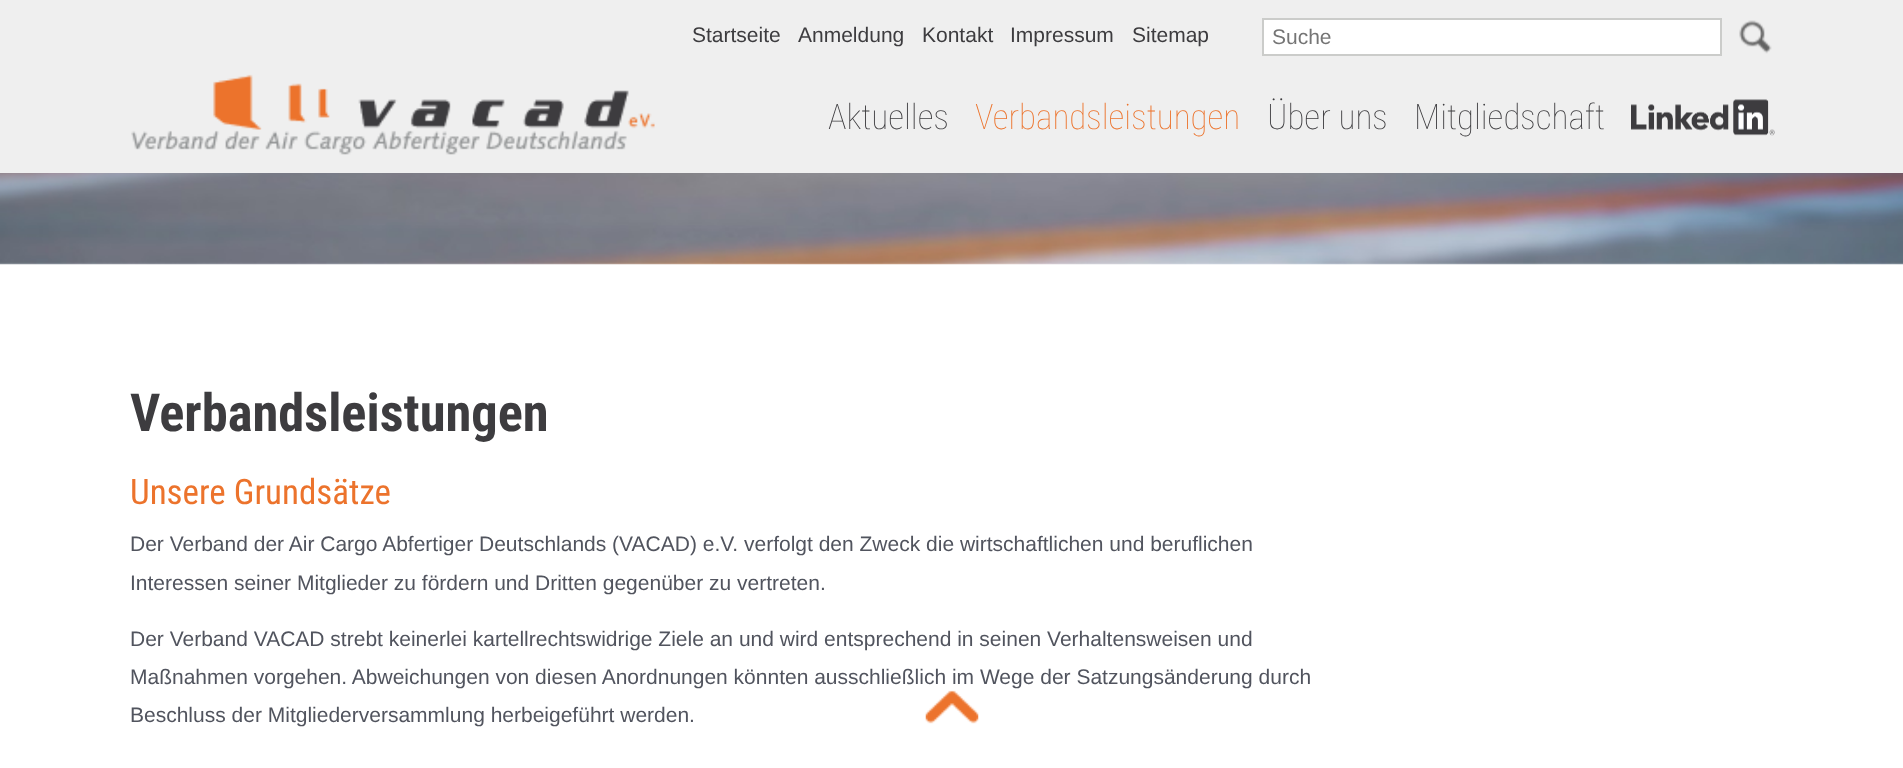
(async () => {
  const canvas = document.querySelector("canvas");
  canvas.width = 1903;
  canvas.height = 768;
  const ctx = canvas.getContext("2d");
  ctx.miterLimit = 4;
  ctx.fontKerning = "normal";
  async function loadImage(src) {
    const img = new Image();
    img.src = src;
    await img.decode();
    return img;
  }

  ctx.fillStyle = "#ffffff";
  ctx.fillRect(0, 0, 1903, 768);
  ctx.fillStyle = "#efefef";
  ctx.fillRect(0, 0, 1903, 173);
  ctx.fillStyle = "#ffffff";
  ctx.beginPath();
  ctx.rect(1263, 19, 458, 36);
  ctx.fill();
  ctx.strokeStyle = "#cbccca";
  ctx.lineWidth = 2;
  ctx.stroke();
  ctx.drawImage(await loadImage("img/1.png"), 1739, 20, 33, 34);
  ctx.drawImage(await loadImage("img/2.png"), 131, 74, 524, 81);
  ctx.drawImage(await loadImage("img/3.png"), 1631, 99, 144, 37);
  ctx.drawImage(await loadImage("img/4.png"), 0, 173, 1903, 92);
  ctx.drawImage(await loadImage("img/5.png"), 925, 690, 54, 34);
  ctx.font = "21px Liberation Sans";
  ctx.fillStyle = "#3d3c3f";
  for (const [text, x, y] of [
    ["Startseite", 692, 42],
    ["Anmeldung", 798, 42],
    ["Kontakt", 922, 42],
    ["Impressum", 1010, 42],
    ["Sitemap", 1132, 42],
  ]) {
    ctx.fillText(text, x, y);
  }
  ctx.fillStyle = "#757575";
  ctx.fillText("Suche", 1272, 44);
  ctx.font = "100 35px Roboto Condensed";
  ctx.fillStyle = "#3d3c3f";
  ctx.fillText("Aktuelles", 828, 129);
  ctx.fillStyle = "#ec732c";
  ctx.fillText("Verbandsleistungen", 975, 129);
  ctx.fillStyle = "#3d3c3f";
  ctx.fillText("Über uns", 1267, 129);
  ctx.fillText("Mitgliedschaft", 1414, 129);
  ctx.font = "bold 52.5px Roboto Condensed";
  ctx.fillText("Verbandsleistungen", 130, 431);
  ctx.font = "35px Roboto Condensed";
  ctx.fillStyle = "#ec732c";
  ctx.fillText("Unsere Grundsätze", 130, 504);
  ctx.font = "21px Liberation Sans";
  ctx.fillStyle = "#51545e";
  for (const [text, x, y] of [
    ["Der Verband der Air Cargo Abfertiger Deutschlands (VACAD) e.V. verfolgt den Zweck die wirtschaftlichen und beruflichen", 130, 551],
    ["Interessen seiner Mitglieder zu fördern und Dritten gegenüber zu vertreten.", 130, 590],
    ["Der Verband VACAD strebt keinerlei kartellrechtswidrige Ziele an und wird entsprechend in seinen Verhaltensweisen und", 130, 646],
    ["Maßnahmen vorgehen. Abweichungen von diesen Anordnungen könnten ausschließlich im Wege der Satzungsänderung durch", 130, 684],
    ["Beschluss der Mitgliederversammlung herbeigeführt werden.", 130, 722],
  ]) {
    ctx.fillText(text, x, y);
  }
})();
